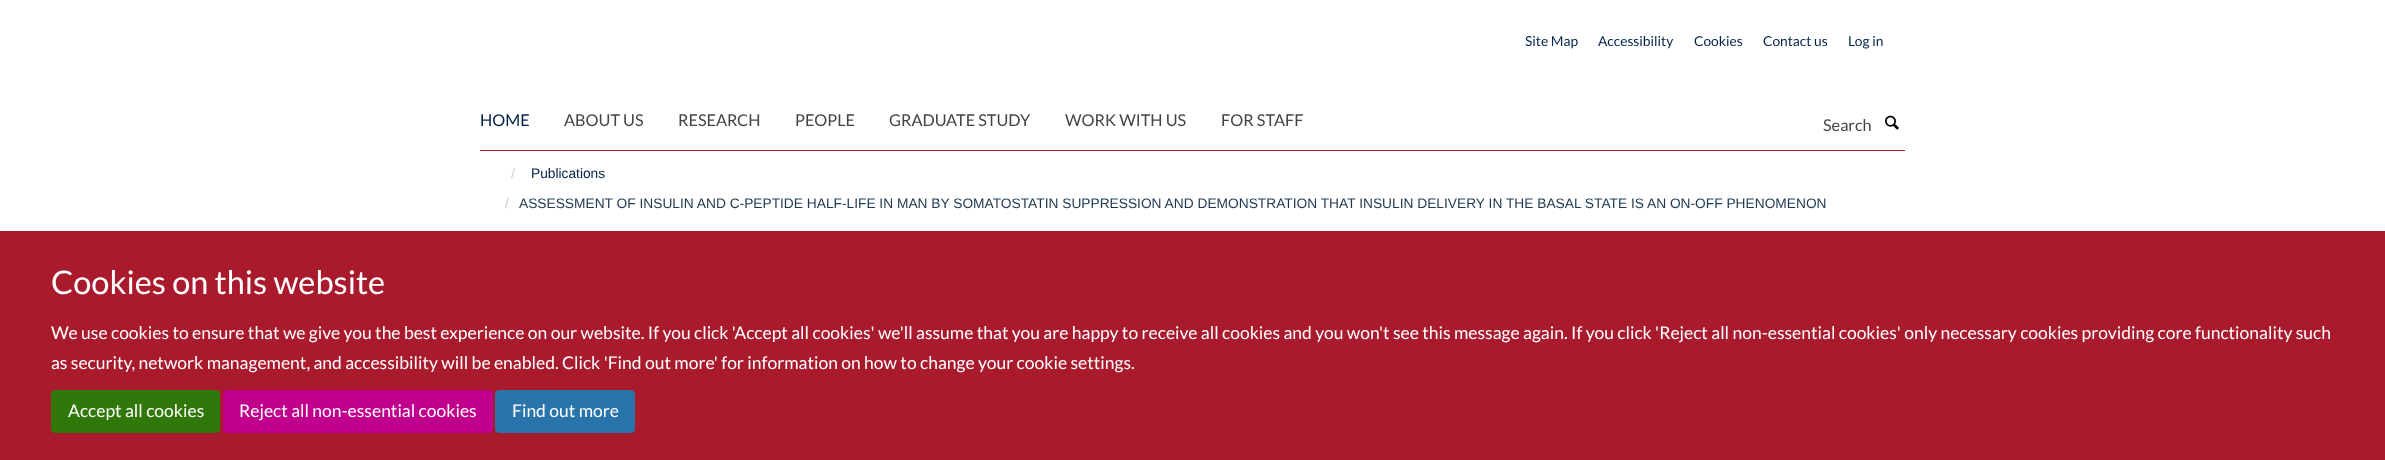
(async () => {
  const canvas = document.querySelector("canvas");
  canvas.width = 2385;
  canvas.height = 460;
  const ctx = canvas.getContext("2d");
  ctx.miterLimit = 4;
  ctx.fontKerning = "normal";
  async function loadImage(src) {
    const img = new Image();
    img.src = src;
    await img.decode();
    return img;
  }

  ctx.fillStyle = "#ffffff";
  ctx.fillRect(0, 0, 2385, 460);
  ctx.fillStyle = "#aa1a2d";
  ctx.fillRect(480, 150, 1425, 1);
  ctx.drawImage(await loadImage("img/1.png"), 1885, 115, 14, 15);
  ctx.fillRect(0, 231, 2385, 229);
  ctx.fillStyle = "#31780a";
  ctx.beginPath();
  ctx.roundRect(51.5, 390.5, 168, 42, 3.5);
  ctx.fill();
  ctx.strokeStyle = "#31780a";
  ctx.stroke();
  ctx.fillStyle = "#c0008d";
  ctx.beginPath();
  ctx.roundRect(223.5, 390.5, 269, 42, 3.5);
  ctx.fill();
  ctx.strokeStyle = "#c0008d";
  ctx.stroke();
  ctx.fillStyle = "#2a74ac";
  ctx.beginPath();
  ctx.roundRect(495.5, 390.5, 139, 42, 3.5);
  ctx.fill();
  ctx.strokeStyle = "#2a74ac";
  ctx.stroke();
  ctx.font = "13.75px Lato";
  ctx.fillStyle = "#002147";
  for (const [text, x, y] of [
    ["Site Map", 1525, 46],
    ["Accessibility", 1598, 46],
    ["Cookies", 1694, 46],
    ["Contact us", 1763, 46],
    ["Log in", 1848, 46],
  ]) {
    ctx.fillText(text, x, y);
  }
  ctx.font = "16.25px Lato";
  ctx.fillText("HOME", 480, 126);
  ctx.fillStyle = "#444444";
  for (const [text, x, y] of [
    ["ABOUT US", 564, 126],
    ["RESEARCH", 678, 126],
    ["PEOPLE", 795, 126],
    ["GRADUATE STUDY", 889, 126],
    ["WORK WITH US", 1065, 126],
    ["FOR STAFF", 1221, 126],
    ["Search", 1823, 131],
  ]) {
    ctx.fillText(text, x, y);
  }
  ctx.font = "13.75px Liberation Sans";
  ctx.fillStyle = "#cccccc";
  ctx.fillText("/", 511, 178);
  ctx.fillStyle = "#002147";
  ctx.fillText("Publications", 531, 178);
  ctx.fillStyle = "#cccccc";
  ctx.fillText("/", 505, 208);
  ctx.fillStyle = "#1d3850";
  ctx.fillText("ASSESSMENT OF INSULIN AND C-PEPTIDE HALF-LIFE IN MAN BY SOMATOSTATIN SUPPRESSION AND DEMONSTRATION THAT INSULIN DELIVERY IN THE BASAL STATE IS AN ON-OFF PHENOMENON", 519, 208);
  ctx.font = "32.5px Lato";
  ctx.fillStyle = "#ffffff";
  ctx.fillText("Cookies on this website", 51, 294);
  ctx.font = "17.5px Lato";
  for (const [text, x, y] of [
    ["We use cookies to ensure that we give you the best experience on our website. If you click 'Accept all cookies' we'll assume that you are happy to receive all cookies and you won't see this message again. If you click 'Reject all non-essential cookies' only necessary cookies providing core functionality such", 51, 339],
    ["as security, network management, and accessibility will be enabled. Click 'Find out more' for information on how to change your cookie settings.", 51, 369],
    ["Accept all cookies", 68, 417],
    ["Reject all non-essential cookies", 239, 417],
    ["Find out more", 512, 417],
  ]) {
    ctx.fillText(text, x, y);
  }
})();
